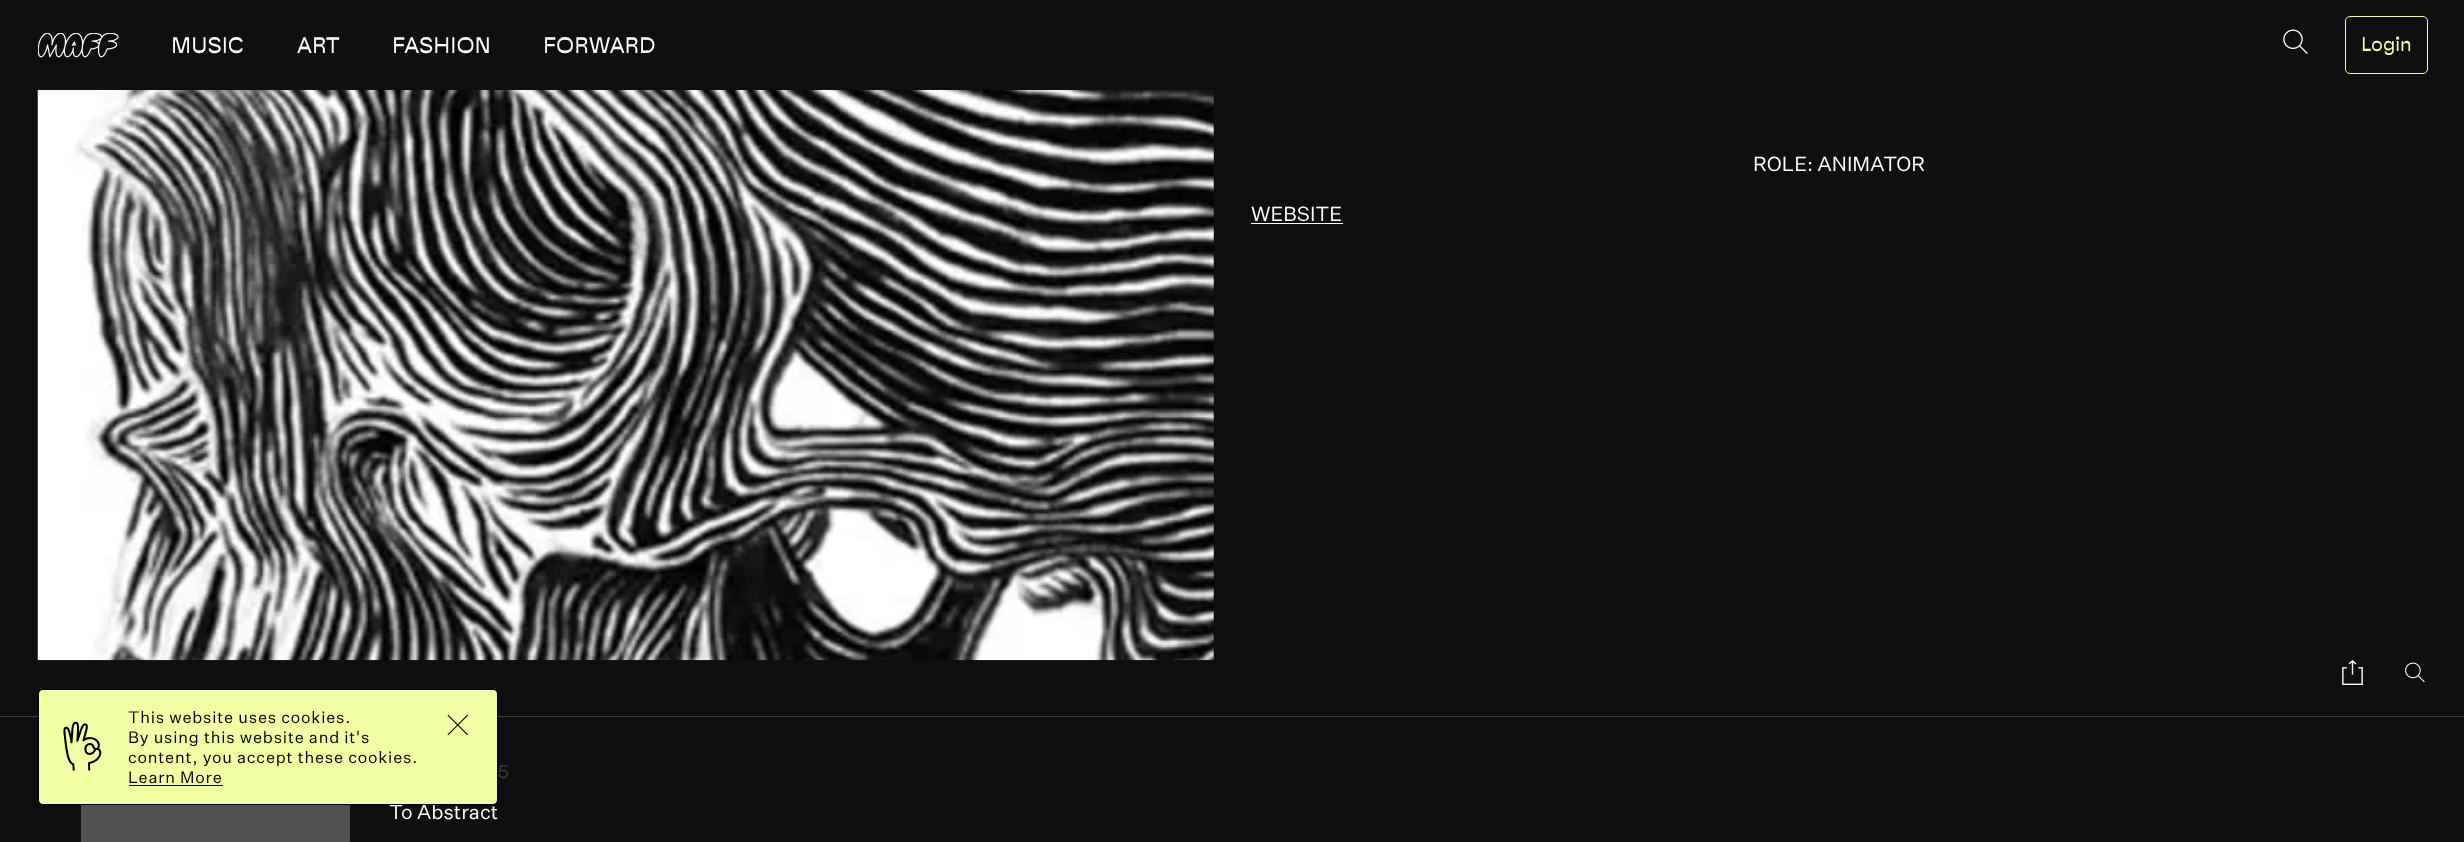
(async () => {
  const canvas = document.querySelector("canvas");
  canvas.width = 2464;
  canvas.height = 842;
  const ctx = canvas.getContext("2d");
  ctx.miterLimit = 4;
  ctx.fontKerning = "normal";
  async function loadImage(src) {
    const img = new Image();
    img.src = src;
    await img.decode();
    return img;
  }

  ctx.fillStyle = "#0f0f0f";
  ctx.fillRect(0, 0, 2464, 842);
  ctx.drawImage(await loadImage("img/1.png"), 38, 33, 81, 25);
  ctx.drawImage(await loadImage("img/2.png"), 2283, 29, 25, 25);
  ctx.beginPath();
  ctx.roundRect(2345.5, 16.5, 82, 57, 4.5);
  ctx.strokeStyle = "#f2ffa4";
  ctx.stroke();
  ctx.drawImage(await loadImage("img/5.png"), 37, 90, 1177, 571);
  ctx.fillStyle = "#ffffff";
  ctx.fillRect(1251, 223, 92, 1);
  ctx.drawImage(await loadImage("img/6.png"), 2342, 660, 21, 25);
  ctx.drawImage(await loadImage("img/7.png"), 2405, 662, 20, 21);
  ctx.fillStyle = "#3f3f3f";
  ctx.fillRect(0, 716, 2464, 1);
  ctx.fillStyle = "#515151";
  ctx.fillRect(81, 805, 269, 37);
  ctx.font = "22.5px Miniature";
  ctx.fillStyle = "#ffffff";
  for (const [text, x, y] of [
    ["MUSIC", 171, 53],
    ["ART", 297, 53],
    ["FASHION", 392, 53],
    ["FORWARD", 543, 53],
  ]) {
    ctx.fillText(text, x, y);
  }
  ctx.font = "20px Miniature";
  ctx.fillStyle = "#f2ffa4";
  ctx.fillText("Login", 2361, 51);
  ctx.font = "20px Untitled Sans";
  ctx.fillStyle = "#ffffff";
  ctx.fillText("ROLE: ANIMATOR", 1753, 171);
  ctx.fillText("WEBSITE", 1251, 221);
  ctx.font = "18px Untitled Sans";
  ctx.fillStyle = "#3f3f3f";
  ctx.fillText("5", 498, 778);
  ctx.font = "20px Untitled Sans";
  ctx.fillStyle = "#ffffff";
  ctx.fillText("To Abstract", 389, 819);
  ctx.fillStyle = "#f2ffa4";
  ctx.beginPath();
  ctx.roundRect(38.5, 689.5, 459, 115, 4.5);
  ctx.fill();
  ctx.strokeStyle = "#000000";
  ctx.stroke();
  ctx.drawImage(await loadImage("img/4.png"), 447, 714, 21, 22);
  ctx.drawImage(await loadImage("img/3.png"), 63, 721, 39, 50);
  ctx.letterSpacing = "0.8px";
  ctx.font = "16.25px Untitled Sans";
  ctx.fillStyle = "#000000";
  ctx.fillText("Learn More", 128, 783);
  ctx.fillRect(129, 785, 94, 1);
  for (const [text, x, y] of [
    ["content, you accept these cookies.", 128, 763],
    ["By using this website and it's", 128, 743],
    ["This website uses cookies.", 128, 723],
  ]) {
    ctx.fillText(text, x, y);
  }
})();
